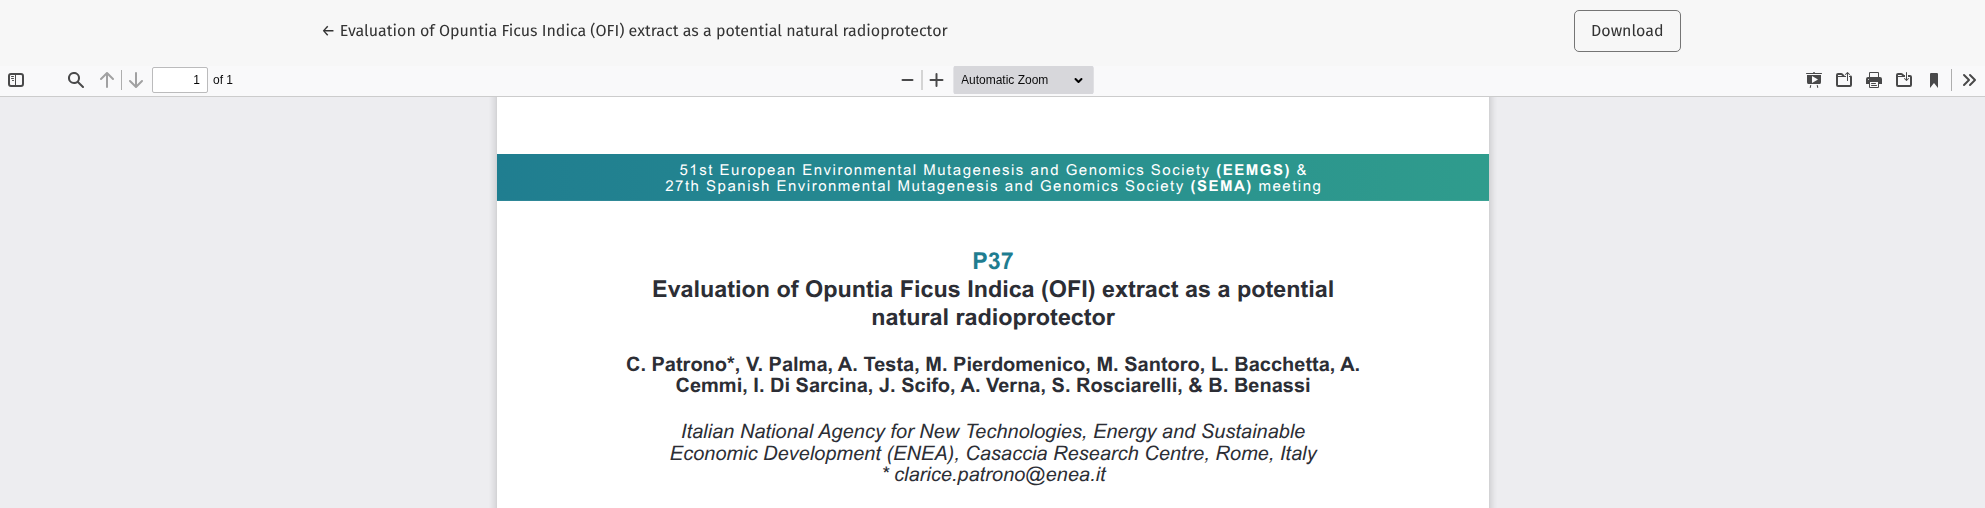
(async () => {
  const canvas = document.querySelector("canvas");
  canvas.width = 1985;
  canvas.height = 508;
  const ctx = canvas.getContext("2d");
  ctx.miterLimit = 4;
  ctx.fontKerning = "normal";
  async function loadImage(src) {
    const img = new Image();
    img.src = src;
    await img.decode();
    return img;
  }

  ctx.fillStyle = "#f7f7f7";
  ctx.fillRect(0, 0, 1985, 508);
  ctx.beginPath();
  ctx.roundRect(1574.5, 10.5, 106, 41, 4.5);
  ctx.strokeStyle = "#757575";
  ctx.stroke();
  ctx.drawImage(await loadImage("img/1.png"), 0, 66, 1985, 442);
  ctx.font = "16px Fira Sans";
  ctx.fillStyle = "#333333";
  ctx.fillText("← Evaluation of Opuntia Ficus Indica (OFI) extract as a potential natural radioprotector", 321, 36);
  ctx.fillText("Download", 1591, 36);
})();
